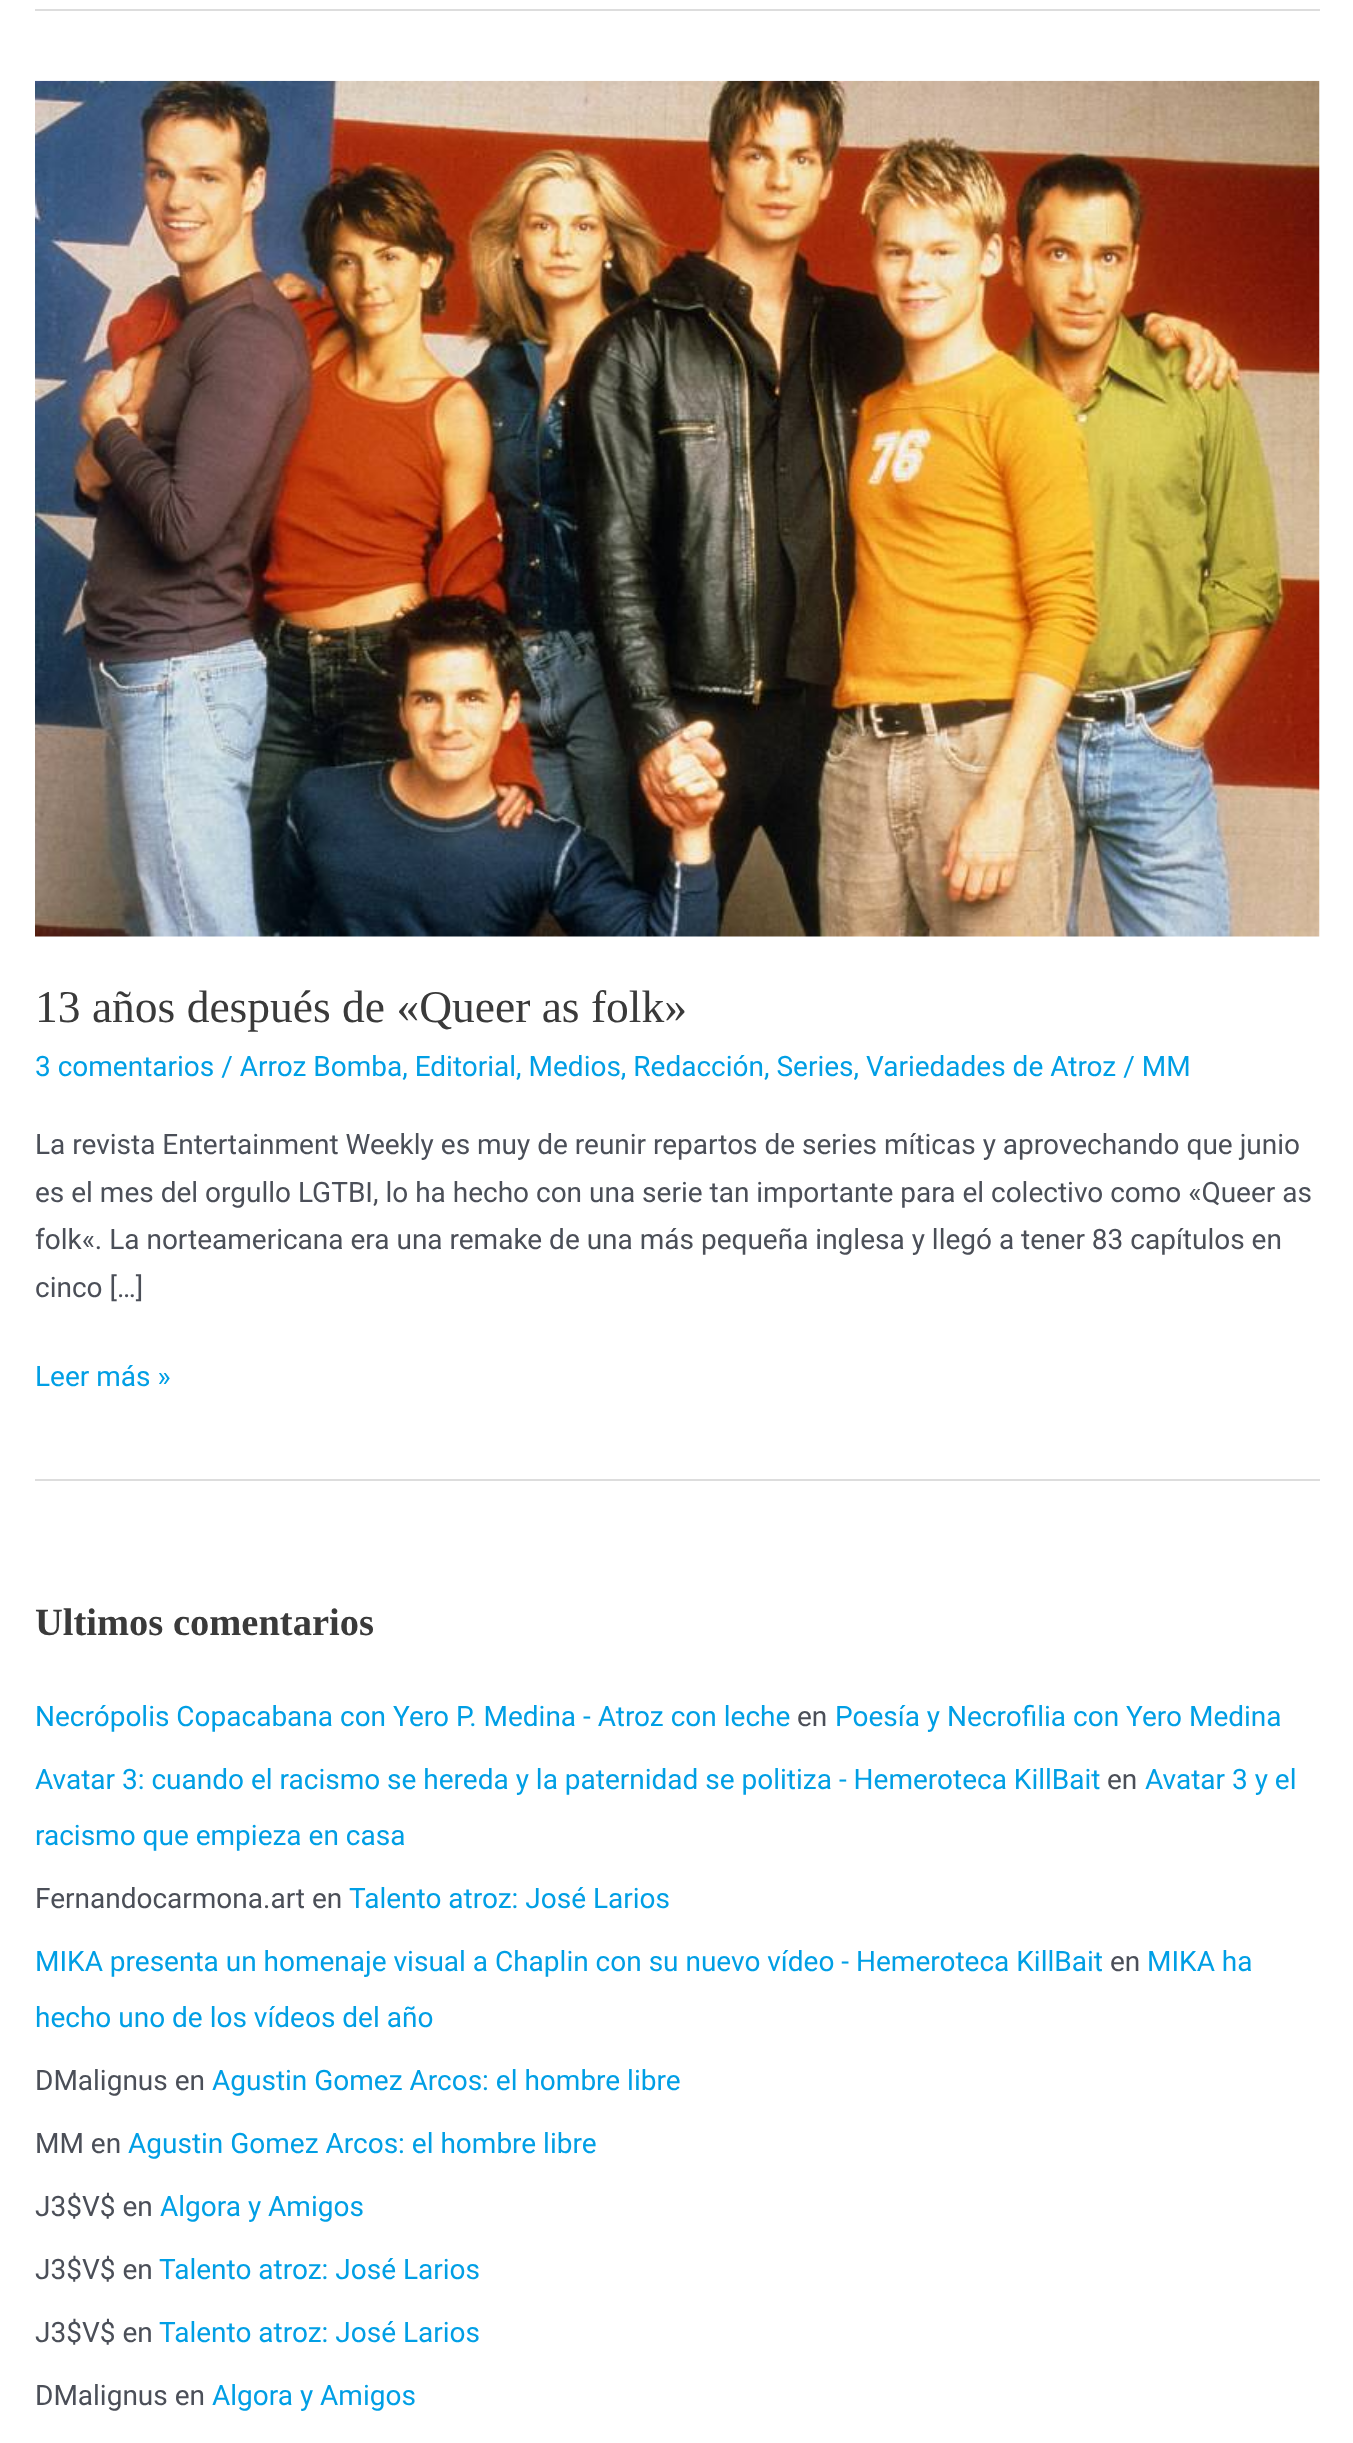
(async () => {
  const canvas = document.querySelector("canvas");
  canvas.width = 1353;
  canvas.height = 2443;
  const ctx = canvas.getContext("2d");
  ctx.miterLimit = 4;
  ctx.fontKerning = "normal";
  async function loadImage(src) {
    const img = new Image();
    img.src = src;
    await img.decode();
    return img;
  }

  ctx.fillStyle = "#ffffff";
  ctx.fillRect(0, 0, 1353, 2443);
  ctx.fillStyle = "#dddddd";
  ctx.fillRect(35, 9, 1285, 2);
  ctx.fillRect(35, 1479, 1285, 2);
  ctx.drawImage(await loadImage("img/1.png"), 35, 80, 1285, 857);
  ctx.font = "45.5px Liberation Serif";
  ctx.fillStyle = "#3a3a3a";
  ctx.fillText("13 años después de «Queer as folk»", 35, 1022);
  ctx.font = "28px Roboto";
  ctx.fillStyle = "#009fe5";
  ctx.fillText("3 comentarios / Arroz Bomba, Editorial, Medios, Redacción, Series, Variedades de Atroz / MM", 35, 1076);
  ctx.fillStyle = "#4b4f58";
  for (const [text, x, y] of [
    ["La revista Entertainment Weekly es muy de reunir repartos de series míticas y aprovechando que junio", 35, 1154],
    ["es el mes del orgullo LGTBI, lo ha hecho con una serie tan importante para el colectivo como «Queer as", 35, 1202],
    ["folk«. La norteamericana era una remake de una más pequeña inglesa y llegó a tener 83 capítulos en", 35, 1249],
    ["cinco […]", 35, 1297],
  ]) {
    ctx.fillText(text, x, y);
  }
  ctx.fillStyle = "#009fe5";
  ctx.fillText("Leer más »", 35, 1386);
  ctx.font = "bold 38.5px Liberation Serif";
  ctx.fillStyle = "#3a3a3a";
  ctx.fillText("Ultimos comentarios", 35, 1635);
  ctx.font = "28px Roboto";
  ctx.fillStyle = "#009fe5";
  ctx.fillText("Necrópolis Copacabana con Yero P. Medina - Atroz con leche", 35, 1726);
  ctx.fillStyle = "#4b4f58";
  ctx.fillText("en", 797, 1726);
  ctx.fillStyle = "#009fe5";
  ctx.fillText("Poesía y Necrofilia con Yero Medina", 835, 1726);
  ctx.fillText("Avatar 3: cuando el racismo se hereda y la paternidad se politiza - Hemeroteca KillBait", 35, 1789);
  ctx.fillStyle = "#4b4f58";
  ctx.fillText("en", 1107, 1789);
  ctx.fillStyle = "#009fe5";
  ctx.fillText("Avatar 3 y el", 1145, 1789);
  ctx.fillText("racismo que empieza en casa", 35, 1845);
  ctx.fillStyle = "#4b4f58";
  ctx.fillText("Fernandocarmona.art en", 35, 1908);
  ctx.fillStyle = "#009fe5";
  ctx.fillText("Talento atroz: José Larios", 349, 1908);
  ctx.fillText("MIKA presenta un homenaje visual a Chaplin con su nuevo vídeo - Hemeroteca KillBait", 35, 1971);
  ctx.fillStyle = "#4b4f58";
  ctx.fillText("en", 1110, 1971);
  ctx.fillStyle = "#009fe5";
  ctx.fillText("MIKA ha", 1147, 1971);
  ctx.fillText("hecho uno de los vídeos del año", 35, 2027);
  ctx.fillStyle = "#4b4f58";
  ctx.fillText("DMalignus en", 35, 2090);
  ctx.fillStyle = "#009fe5";
  ctx.fillText("Agustin Gomez Arcos: el hombre libre", 212, 2090);
  ctx.fillStyle = "#4b4f58";
  ctx.fillText("MM en", 35, 2153);
  ctx.fillStyle = "#009fe5";
  ctx.fillText("Agustin Gomez Arcos: el hombre libre", 128, 2153);
  ctx.fillStyle = "#4b4f58";
  ctx.fillText("J3$V$ en", 35, 2216);
  ctx.fillStyle = "#009fe5";
  ctx.fillText("Algora y Amigos", 160, 2216);
  ctx.fillStyle = "#4b4f58";
  ctx.fillText("J3$V$ en", 35, 2279);
  ctx.fillStyle = "#009fe5";
  ctx.fillText("Talento atroz: José Larios", 159, 2279);
  ctx.fillStyle = "#4b4f58";
  ctx.fillText("J3$V$ en", 35, 2342);
  ctx.fillStyle = "#009fe5";
  ctx.fillText("Talento atroz: José Larios", 159, 2342);
  ctx.fillStyle = "#4b4f58";
  ctx.fillText("DMalignus en", 35, 2405);
  ctx.fillStyle = "#009fe5";
  ctx.fillText("Algora y Amigos", 212, 2405);
})();
